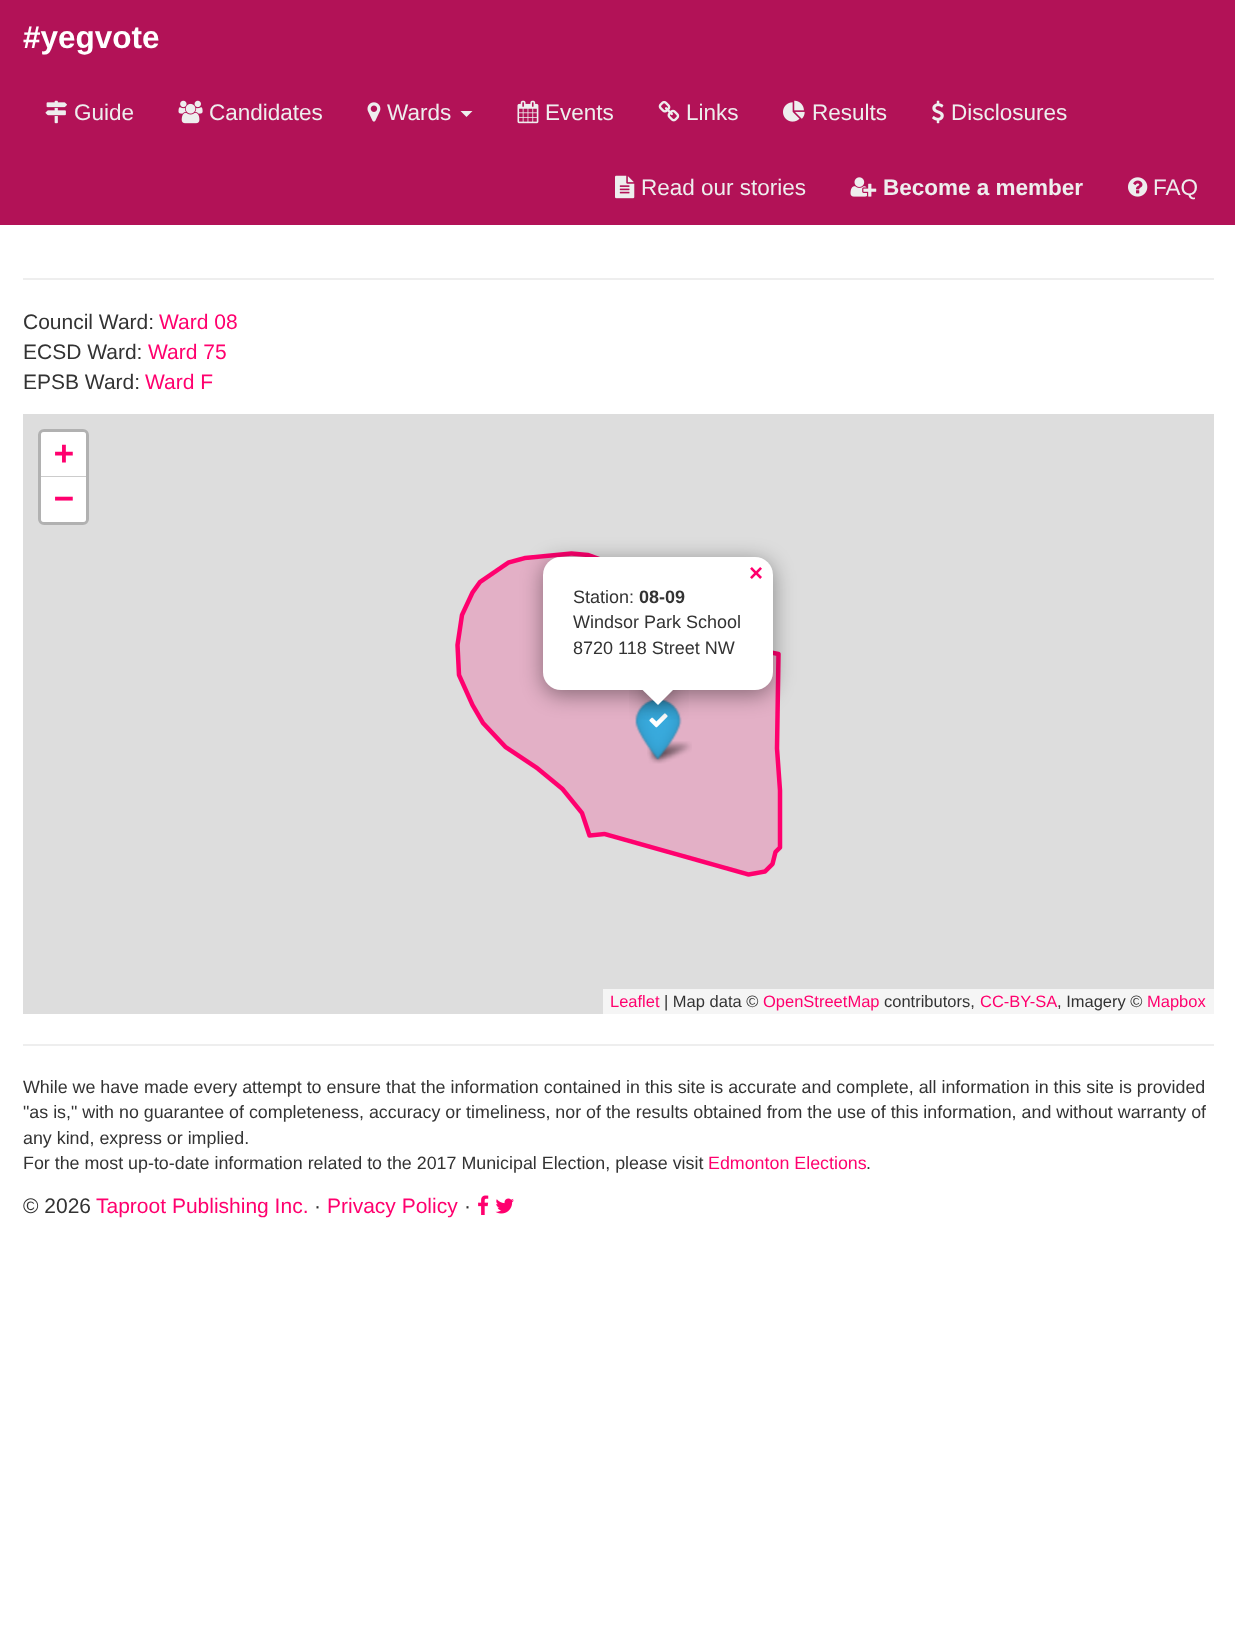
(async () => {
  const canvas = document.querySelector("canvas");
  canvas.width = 1235;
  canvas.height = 1632;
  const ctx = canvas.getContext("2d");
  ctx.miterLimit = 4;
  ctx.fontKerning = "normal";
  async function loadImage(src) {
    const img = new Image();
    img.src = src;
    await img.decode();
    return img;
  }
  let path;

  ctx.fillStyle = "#ffffff";
  ctx.fillRect(0, 0, 1235, 1632);
  ctx.fillStyle = "#b21257";
  ctx.fillRect(0, 0, 1235, 225);
  ctx.drawImage(await loadImage("img/1.png"), 45, 100, 22, 24);
  ctx.drawImage(await loadImage("img/2.png"), 178, 100, 25, 24);
  ctx.drawImage(await loadImage("img/3.png"), 367, 102, 14, 20);
  ctx.fillStyle = "#eeeeee";
  path = new Path2D("M460.5 111H472.5L466.5 117Z");
  ctx.fill(path);
  ctx.drawImage(await loadImage("img/4.png"), 517, 100, 22, 24);
  ctx.drawImage(await loadImage("img/5.png"), 658, 100, 22, 22);
  ctx.drawImage(await loadImage("img/6.png"), 783, 100, 22, 22);
  ctx.drawImage(await loadImage("img/7.png"), 932, 100, 12, 24);
  ctx.drawImage(await loadImage("img/8.png"), 615, 175, 20, 24);
  ctx.drawImage(await loadImage("img/9.png"), 850, 177, 27, 20);
  ctx.drawImage(await loadImage("img/10.png"), 1128, 177, 20, 20);
  ctx.fillRect(23, 278, 1191, 2);
  ctx.fillStyle = "#dddddd";
  ctx.fillRect(23, 414, 1191, 600);
  ctx.beginPath();
  ctx.roundRect(39.5, 430.5, 48, 93, 4.5);
  ctx.strokeStyle = "#b1b1b1";
  ctx.lineWidth = 3;
  ctx.stroke();
  ctx.fillStyle = "#ffffff";
  ctx.beginPath();
  ctx.roundRect(41, 432, 45, 45, [3, 3, 0, 0]);
  ctx.fill();
  ctx.fillStyle = "#cccccc";
  ctx.fillRect(41, 476, 45, 1);
  ctx.fillStyle = "#ffffff";
  ctx.beginPath();
  ctx.roundRect(41, 477, 45, 45, [0, 0, 3, 3]);
  ctx.fill();
  ctx.fillStyle = "#f5f5f5";
  ctx.fillRect(603, 989, 611, 25);
  ctx.drawImage(await loadImage("img/11.png"), 455, 551, 328, 326);
  ctx.drawImage(await loadImage("img/14.png"), 647, 741, 45, 23);
  ctx.drawImage(await loadImage("img/12.png"), 635, 699, 47, 61);
  ctx.drawImage(await loadImage("img/13.png"), 649, 713, 19, 15);
  ctx.fillStyle = "rgba(0, 0, 0, 0.4)";
  ctx.filter = "blur(10.5px)";
  ctx.beginPath();
  ctx.roundRect(543, 561, 230, 134, 18);
  ctx.fill();
  ctx.filter = "none";
  ctx.fillStyle = "#ffffff";
  ctx.beginPath();
  ctx.roundRect(543, 557, 230, 133, 18);
  ctx.fill();
  ctx.save();
  ctx.beginPath();
  ctx.rect(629, 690, 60, 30);
  ctx.clip();
  ctx.fillStyle = "rgba(0, 0, 0, 0.4)";
  ctx.filter = "blur(10.5px)";
  ctx.beginPath();
  ctx.rect(645, 680, 26, 25);
  ctx.fill();
  ctx.filter = "none";
  ctx.restore();
  ctx.save();
  ctx.beginPath();
  ctx.rect(629, 690, 60, 30);
  ctx.clip();
  path = new Path2D("M658 669L676 687L658 705L639.5 687Z");
  ctx.fill(path);
  ctx.restore();
  ctx.fillStyle = "#eeeeee";
  ctx.fillRect(23, 1044, 1191, 2);
  ctx.drawImage(await loadImage("img/15.png"), 478, 1195, 11, 20);
  ctx.drawImage(await loadImage("img/16.png"), 495, 1198, 19, 16);
  ctx.font = "bold 31.5px Liberation Sans";
  ctx.fillStyle = "#ffffff";
  ctx.fillText("#yegvote", 23, 48);
  ctx.font = "22.5px Liberation Sans";
  ctx.fillStyle = "#eeeeee";
  for (const [text, x, y] of [
    ["Guide", 74, 120],
    ["Candidates", 209, 120],
    ["Wards", 387, 120],
    ["Events", 545, 120],
    ["Links", 686, 120],
    ["Results", 812, 120],
    ["Disclosures", 951, 120],
    ["Read our stories", 641, 195],
  ]) {
    ctx.fillText(text, x, y);
  }
  ctx.font = "bold 22.5px Liberation Sans";
  ctx.fillText("Become a member", 883, 195);
  ctx.font = "22.5px Liberation Sans";
  ctx.fillText("FAQ", 1153, 195);
  ctx.font = "21px Liberation Sans";
  ctx.fillStyle = "#333333";
  ctx.fillText("Council Ward:", 23, 329);
  ctx.fillStyle = "#ff006e";
  ctx.fillText("Ward 08", 159, 329);
  ctx.fillStyle = "#333333";
  ctx.fillText("ECSD Ward:", 23, 359);
  ctx.fillStyle = "#ff006e";
  ctx.fillText("Ward 75", 148, 359);
  ctx.fillStyle = "#333333";
  ctx.fillText("EPSB Ward:", 23, 389);
  ctx.fillStyle = "#ff006e";
  ctx.fillText("Ward F", 145, 389);
  ctx.font = "bold 33px DejaVu Sans Mono";
  ctx.fillText("+", 54, 464);
  ctx.fillText("−", 54, 509);
  ctx.font = "16.5px Liberation Sans";
  ctx.fillText("Leaflet", 610, 1007);
  ctx.fillStyle = "#333333";
  ctx.fillText("| Map data ©", 664, 1007);
  ctx.fillStyle = "#ff006e";
  ctx.fillText("OpenStreetMap", 763, 1007);
  ctx.fillStyle = "#333333";
  ctx.fillText("contributors,", 884, 1007);
  ctx.fillStyle = "#ff006e";
  ctx.fillText("CC-BY-SA", 980, 1007);
  ctx.fillStyle = "#333333";
  ctx.fillText(", Imagery ©", 1057, 1007);
  ctx.fillStyle = "#ff006e";
  ctx.fillText("Mapbox", 1147, 1007);
  ctx.font = "bold 24px Liberation Sans";
  ctx.fillText("×", 749, 581);
  ctx.font = "18px Liberation Sans";
  ctx.fillStyle = "#333333";
  ctx.fillText("Station:", 573, 603);
  ctx.font = "bold 18px Liberation Sans";
  ctx.fillText("08-09", 639, 603);
  ctx.font = "18px Liberation Sans";
  ctx.fillText("Windsor Park School", 573, 628);
  ctx.fillText("8720 118 Street NW", 573, 654);
  ctx.font = "17.85px Liberation Sans";
  for (const [text, x, y] of [
    ["While we have made every attempt to ensure that the information contained in this site is accurate and complete, all information in this site is provided", 23, 1093],
    ["\"as is,\" with no guarantee of completeness, accuracy or timeliness, nor of the results obtained from the use of this information, and without warranty of", 23, 1118],
    ["any kind, express or implied.", 23, 1144],
    ["For the most up-to-date information related to the 2017 Municipal Election, please visit", 23, 1169],
  ]) {
    ctx.fillText(text, x, y);
  }
  ctx.fillStyle = "#ff006e";
  ctx.fillText("Edmonton Elections", 708, 1169);
  ctx.fillStyle = "#333333";
  ctx.fillText(".", 866, 1169);
  ctx.font = "21px Liberation Sans";
  ctx.fillText("© 2026", 23, 1213);
  ctx.fillStyle = "#ff006e";
  ctx.fillText("Taproot Publishing Inc.", 96, 1213);
  ctx.fillStyle = "#333333";
  ctx.fillText("·", 314, 1213);
  ctx.fillStyle = "#ff006e";
  ctx.fillText("Privacy Policy", 327, 1213);
  ctx.fillStyle = "#333333";
  ctx.fillText("·", 464, 1213);
})();
